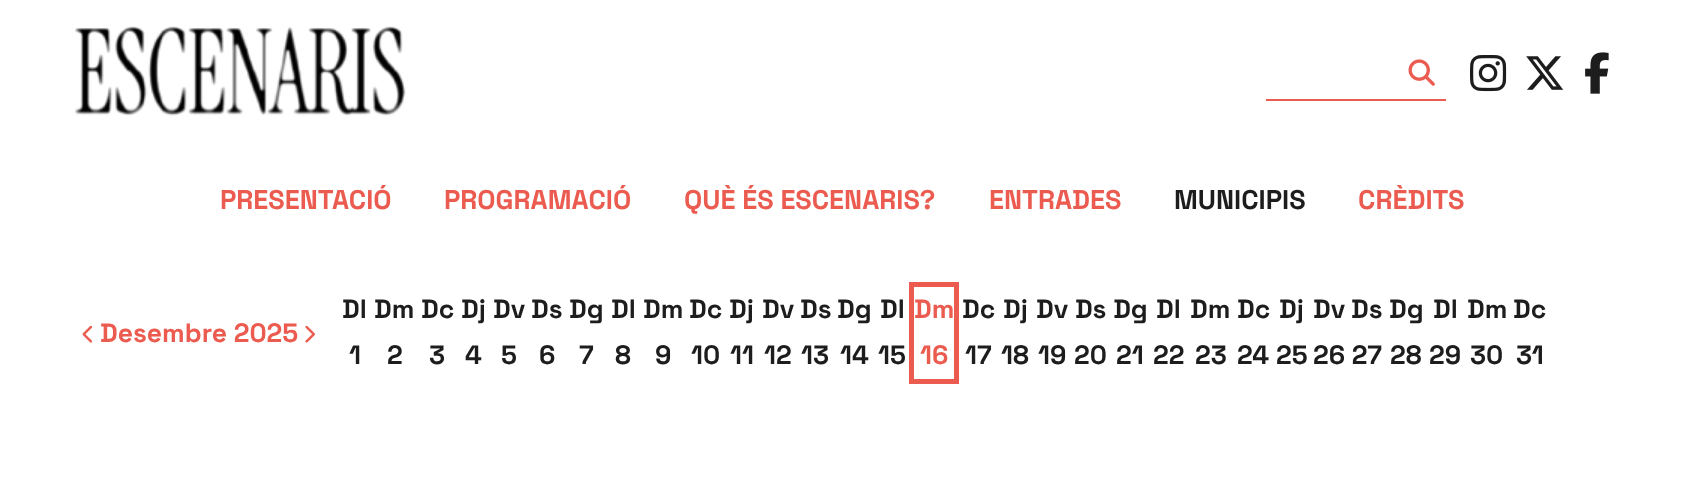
(async () => {
  const canvas = document.querySelector("canvas");
  canvas.width = 1684;
  canvas.height = 484;
  const ctx = canvas.getContext("2d");
  ctx.miterLimit = 4;
  ctx.fontKerning = "normal";
  async function loadImage(src) {
    const img = new Image();
    img.src = src;
    await img.decode();
    return img;
  }

  ctx.fillStyle = "#ffffff";
  ctx.fillRect(0, 0, 1684, 484);
  ctx.drawImage(await loadImage("img/1.png"), 75, 26, 331, 90);
  ctx.drawImage(await loadImage("img/2.png"), 1408, 59, 27, 27);
  ctx.fillStyle = "#eb5b4f";
  ctx.fillRect(1266, 99, 180, 2);
  ctx.drawImage(await loadImage("img/3.png"), 1470, 55, 37, 37);
  ctx.drawImage(await loadImage("img/4.png"), 1526, 56, 38, 34);
  ctx.drawImage(await loadImage("img/5.png"), 1585, 52, 24, 42);
  ctx.drawImage(await loadImage("img/6.png"), 82, 325, 11, 18);
  ctx.drawImage(await loadImage("img/7.png"), 305, 325, 10, 18);
  ctx.strokeStyle = "#eb5b4f";
  ctx.lineWidth = 5;
  ctx.strokeRect(911.5, 284.5, 45, 97);
  ctx.font = "bold 27px Space Grotesk";
  for (const [text, x, y] of [
    ["PRESENTACIÓ", 220, 209],
    ["PROGRAMACIÓ", 444, 209],
    ["QUÈ ÉS ESCENARIS?", 684, 209],
    ["ENTRADES", 989, 209],
  ]) {
    ctx.fillText(text, x, y);
  }
  ctx.fillStyle = "#1d1d1d";
  ctx.fillText("MUNICIPIS", 1174, 209);
  ctx.fillStyle = "#eb5b4f";
  ctx.fillText("CRÈDITS", 1358, 209);
  ctx.font = "bold 26.5px Space Grotesk";
  ctx.fillText("Desembre 2025", 100, 342);
  ctx.fillStyle = "#1d1d1d";
  for (const [text, x, y] of [
    ["Dl", 342, 318],
    ["1", 349, 364],
    ["Dm", 374, 318],
    ["2", 387, 364],
    ["Dc", 421, 318],
    ["3", 429, 364],
    ["Dj", 461, 318],
    ["4", 465, 364],
    ["Dv", 493, 318],
    ["5", 501, 364],
    ["Ds", 531, 318],
    ["6", 539, 364],
    ["Dg", 569, 318],
    ["7", 579, 364],
    ["Dl", 611, 318],
    ["8", 615, 364],
    ["Dm", 643, 318],
    ["9", 655, 364],
    ["Dc", 689, 318],
    ["10", 691, 364],
    ["Dj", 729, 318],
    ["11", 730, 364],
    ["Dv", 762, 318],
    ["12", 764, 364],
    ["Ds", 800, 318],
    ["13", 801, 364],
    ["Dg", 837, 318],
    ["14", 840, 364],
    ["Dl", 880, 318],
    ["15", 878, 364],
  ]) {
    ctx.fillText(text, x, y);
  }
  ctx.fillStyle = "#eb5b4f";
  ctx.fillText("Dm", 914, 318);
  ctx.fillText("16", 920, 364);
  ctx.fillStyle = "#1d1d1d";
  for (const [text, x, y] of [
    ["Dc", 962, 318],
    ["17", 965, 364],
    ["Dj", 1003, 318],
    ["18", 1001, 364],
    ["Dv Ds Dg", 1036, 318],
    ["19", 1038, 364],
    ["Dl", 1156, 318],
    ["22", 1153, 364],
    ["Dm", 1190, 318],
    ["23", 1195, 364],
    ["Dc", 1237, 318],
    ["24 25", 1237, 364],
    ["Dj", 1279, 318],
    ["Dv", 1313, 318],
    ["26 27", 1313, 364],
    ["20", 1074, 364],
    ["21", 1116, 364],
    ["Ds", 1351, 318],
    ["Dg", 1389, 318],
    ["28", 1390, 364],
    ["Dl", 1433, 318],
    ["29", 1429, 364],
    ["Dm", 1467, 318],
    ["30", 1470, 364],
    ["Dc", 1513, 318],
    ["31", 1516, 364],
  ]) {
    ctx.fillText(text, x, y);
  }
})();
